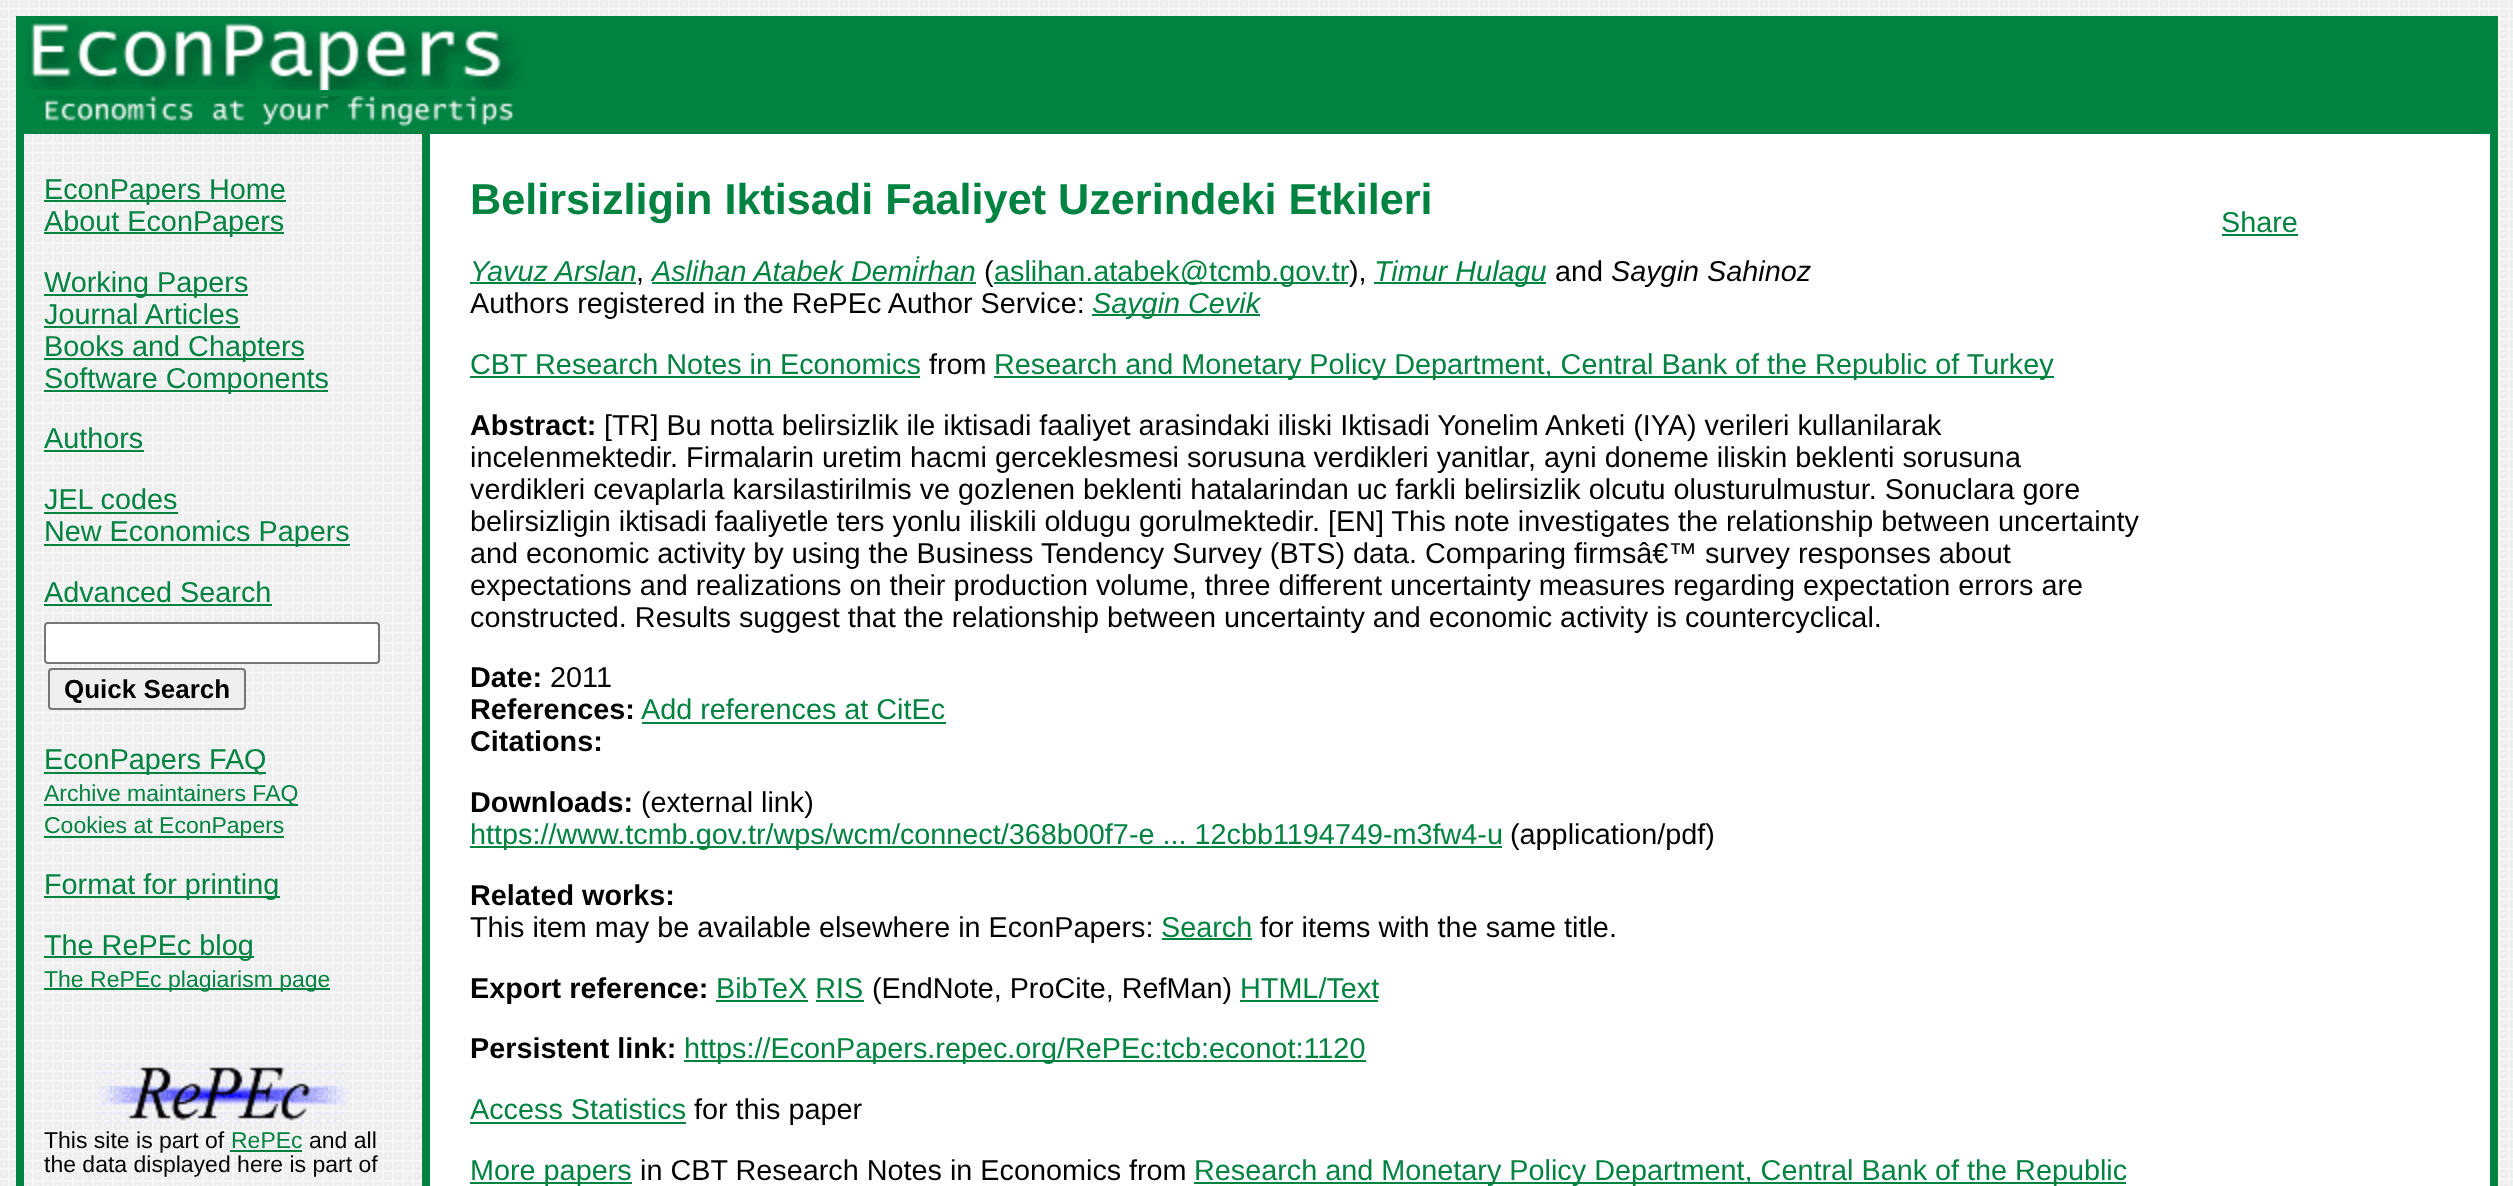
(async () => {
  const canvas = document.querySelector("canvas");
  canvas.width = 2513;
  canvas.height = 1186;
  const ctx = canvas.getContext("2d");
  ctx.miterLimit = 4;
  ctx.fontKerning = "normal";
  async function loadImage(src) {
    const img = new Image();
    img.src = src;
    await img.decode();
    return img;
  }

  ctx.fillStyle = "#ffffff";
  ctx.fillRect(0, 0, 2513, 1186);
  ctx.drawImage(await loadImage("img/1.png"), 0, 0, 2513, 1186);
  ctx.fillStyle = "#008241";
  ctx.fillRect(16, 16, 8, 1170);
  ctx.fillRect(24, 16, 2466, 80);
  ctx.drawImage(await loadImage("img/2.png"), 26, 20, 498, 70);
  ctx.fillRect(2490, 16, 8, 1170);
  ctx.fillRect(24, 96, 2466, 38);
  ctx.drawImage(await loadImage("img/3.png"), 36, 96, 478, 31);
  ctx.drawImage(await loadImage("img/4.png"), 24, 134, 398, 898);
  for (const [x, y, w, h, color] of [
    [44, 200, 242, 2, "#008241"],
    [44, 232, 240, 2, "#008241"],
    [44, 294, 204, 2, "#008241"],
    [44, 326, 196, 2, "#008241"],
    [44, 358, 260, 2, "#008241"],
    [44, 390, 284, 2, "#008241"],
    [44, 450, 100, 2, "#008241"],
    [44, 512, 134, 2, "#008241"],
    [44, 544, 306, 2, "#008241"],
    [44, 604, 228, 2, "#008241"],
  ]) {
    ctx.fillStyle = color;
    ctx.fillRect(x, y, w, h);
  }
  ctx.fillStyle = "#ffffff";
  ctx.beginPath();
  ctx.roundRect(45, 623, 334, 40, 3);
  ctx.fill();
  ctx.strokeStyle = "#767676";
  ctx.lineWidth = 2;
  ctx.stroke();
  ctx.fillStyle = "#efefef";
  ctx.beginPath();
  ctx.roundRect(49, 669, 196, 40, 3);
  ctx.fill();
  ctx.stroke();
  for (const [x, y, w, h, color] of [
    [44, 772, 222, 2, "#008241"],
    [44, 804, 254, 2, "#008241"],
    [44, 836, 240, 2, "#008241"],
    [44, 896, 236, 2, "#008241"],
    [44, 956, 210, 2, "#008241"],
    [44, 988, 286, 2, "#008241"],
    [422, 134, 8, 1052, "#008241"],
    [430, 134, 2060, 1052, "#ffffff"],
    [470, 282, 166, 2, "#008241"],
    [652, 282, 324, 2, "#008241"],
    [994, 282, 354, 2, "#008241"],
    [1374, 282, 172, 2, "#008241"],
    [1092, 314, 168, 2, "#008241"],
    [470, 376, 450, 2, "#008241"],
    [994, 376, 1060, 2, "#008241"],
    [642, 722, 304, 2, "#008241"],
    [470, 846, 1032, 2, "#008241"],
    [1162, 938, 90, 2, "#008241"],
    [716, 1000, 92, 2, "#008241"],
    [1240, 1000, 138, 2, "#008241"],
    [816, 1000, 48, 2, "#008241"],
    [684, 1060, 682, 2, "#008241"],
    [470, 1122, 216, 2, "#008241"],
    [470, 1182, 162, 2, "#008241"],
    [1194, 1182, 932, 2, "#008241"],
    [2222, 234, 76, 2, "#008241"],
  ]) {
    ctx.fillStyle = color;
    ctx.fillRect(x, y, w, h);
  }
  ctx.drawImage(await loadImage("img/5.png"), 24, 1032, 398, 154);
  ctx.drawImage(await loadImage("img/6.png"), 96, 1064, 254, 58);
  ctx.fillRect(230, 1150, 72, 2);
  ctx.font = "28.8px Liberation Sans";
  for (const [text, x, y] of [
    ["EconPapers Home", 44, 199],
    ["About EconPapers", 44, 231],
    ["Working Papers", 44, 292],
    ["Journal Articles", 44, 324],
    ["Books and Chapters", 44, 356],
    ["Software Components", 44, 388],
    ["Authors", 44, 448],
    ["JEL codes", 44, 509],
    ["New Economics Papers", 44, 541],
    ["Advanced Search", 44, 602],
  ]) {
    ctx.fillText(text, x, y);
  }
  ctx.font = "bold 26px Liberation Sans";
  ctx.fillStyle = "#000000";
  ctx.fillText("Quick Search", 64, 698);
  ctx.font = "28.8px Liberation Sans";
  ctx.fillStyle = "#008241";
  ctx.fillText("EconPapers FAQ", 44, 769);
  ctx.font = "23px Liberation Sans";
  ctx.fillText("Archive maintainers FAQ", 44, 801);
  ctx.fillText("Cookies at EconPapers", 44, 833);
  ctx.font = "28.8px Liberation Sans";
  ctx.fillText("Format for printing", 44, 894);
  ctx.fillText("The RePEc blog", 44, 955);
  ctx.font = "23px Liberation Sans";
  ctx.fillText("The RePEc plagiarism page", 44, 987);
  ctx.font = "bold 43.2px Liberation Sans";
  ctx.fillText("Belirsizligin Iktisadi Faaliyet Uzerindeki Etkileri", 470, 214);
  ctx.font = "italic 28.8px Liberation Sans";
  ctx.fillText("Yavuz Arslan", 470, 281);
  ctx.font = "28.8px Liberation Sans";
  ctx.fillStyle = "#000000";
  ctx.fillText(",", 636, 281);
  ctx.font = "italic 28.8px Liberation Sans";
  ctx.fillStyle = "#008241";
  ctx.fillText("Aslihan Atabek Demi̇rhan", 652, 281);
  ctx.font = "28.8px Liberation Sans";
  ctx.fillStyle = "#000000";
  ctx.fillText("(", 984, 281);
  ctx.fillStyle = "#008241";
  ctx.fillText("aslihan.atabek@tcmb.gov.tr", 994, 281);
  ctx.fillStyle = "#000000";
  ctx.fillText("),", 1349, 281);
  ctx.font = "italic 28.8px Liberation Sans";
  ctx.fillStyle = "#008241";
  ctx.fillText("Timur Hulagu", 1374, 281);
  ctx.font = "28.8px Liberation Sans";
  ctx.fillStyle = "#000000";
  ctx.fillText("and", 1555, 281);
  ctx.font = "italic 28.8px Liberation Sans";
  ctx.fillText("Saygin Sahinoz", 1611, 281);
  ctx.font = "28.8px Liberation Sans";
  ctx.fillText("Authors registered in the RePEc Author Service:", 470, 313);
  ctx.font = "italic 28.8px Liberation Sans";
  ctx.fillStyle = "#008241";
  ctx.fillText("Saygin Cevik", 1092, 313);
  ctx.font = "28.8px Liberation Sans";
  ctx.fillText("CBT Research Notes in Economics", 470, 374);
  ctx.fillStyle = "#000000";
  ctx.fillText("from", 929, 374);
  ctx.fillStyle = "#008241";
  ctx.fillText("Research and Monetary Policy Department, Central Bank of the Republic of Turkey", 994, 374);
  ctx.font = "bold 28.8px Liberation Sans";
  ctx.fillStyle = "#000000";
  ctx.fillText("Abstract:", 470, 435);
  ctx.font = "28.8px Liberation Sans";
  for (const [text, x, y] of [
    ["[TR] Bu notta belirsizlik ile iktisadi faaliyet arasindaki iliski Iktisadi Yonelim Anketi (IYA) verileri kullanilarak", 604, 435],
    ["incelenmektedir. Firmalarin uretim hacmi gerceklesmesi sorusuna verdikleri yanitlar, ayni doneme iliskin beklenti sorusuna", 470, 467],
    ["verdikleri cevaplarla karsilastirilmis ve gozlenen beklenti hatalarindan uc farkli belirsizlik olcutu olusturulmustur. Sonuclara gore", 470, 499],
    ["belirsizligin iktisadi faaliyetle ters yonlu iliskili oldugu gorulmektedir. [EN] This note investigates the relationship between uncertainty", 470, 531],
    ["and economic activity by using the Business Tendency Survey (BTS) data. Comparing firmsâ€™ survey responses about", 470, 563],
    ["expectations and realizations on their production volume, three different uncertainty measures regarding expectation errors are", 470, 595],
    ["constructed. Results suggest that the relationship between uncertainty and economic activity is countercyclical.", 470, 627],
  ]) {
    ctx.fillText(text, x, y);
  }
  ctx.font = "bold 28.8px Liberation Sans";
  ctx.fillText("Date:", 470, 687);
  ctx.font = "28.8px Liberation Sans";
  ctx.fillText("2011", 550, 687);
  ctx.font = "bold 28.8px Liberation Sans";
  ctx.fillText("References:", 470, 719);
  ctx.font = "28.8px Liberation Sans";
  ctx.fillStyle = "#008241";
  ctx.fillText("Add references at CitEc", 641, 719);
  ctx.font = "bold 28.8px Liberation Sans";
  ctx.fillStyle = "#000000";
  ctx.fillText("Citations:", 470, 751);
  ctx.fillText("Downloads:", 470, 812);
  ctx.font = "28.8px Liberation Sans";
  ctx.fillText("(external link)", 641, 812);
  ctx.fillStyle = "#008241";
  ctx.fillText("https://www.tcmb.gov.tr/wps/wcm/connect/368b00f7-e ... 12cbb1194749-m3fw4-u", 470, 844);
  ctx.fillStyle = "#000000";
  ctx.fillText("(application/pdf)", 1510, 844);
  ctx.font = "bold 28.8px Liberation Sans";
  ctx.fillText("Related works:", 470, 905);
  ctx.font = "28.8px Liberation Sans";
  ctx.fillText("This item may be available elsewhere in EconPapers:", 470, 937);
  ctx.fillStyle = "#008241";
  ctx.fillText("Search", 1161, 937);
  ctx.fillStyle = "#000000";
  ctx.fillText("for items with the same title.", 1260, 937);
  ctx.font = "bold 28.8px Liberation Sans";
  ctx.fillText("Export reference:", 470, 998);
  ctx.font = "28.8px Liberation Sans";
  ctx.fillStyle = "#008241";
  ctx.fillText("BibTeX RIS", 716, 998);
  ctx.fillStyle = "#000000";
  ctx.fillText("(EndNote, ProCite, RefMan)", 872, 998);
  ctx.fillStyle = "#008241";
  ctx.fillText("HTML/Text", 1240, 998);
  ctx.font = "bold 28.8px Liberation Sans";
  ctx.fillStyle = "#000000";
  ctx.fillText("Persistent link:", 470, 1058);
  ctx.font = "28.8px Liberation Sans";
  ctx.fillStyle = "#008241";
  ctx.fillText("https://EconPapers.repec.org/RePEc:tcb:econot:1120", 684, 1058);
  ctx.fillText("Access Statistics", 470, 1119);
  ctx.fillStyle = "#000000";
  ctx.fillText("for this paper", 694, 1119);
  ctx.fillStyle = "#008241";
  ctx.fillText("More papers", 470, 1180);
  ctx.fillStyle = "#000000";
  ctx.fillText("in CBT Research Notes in Economics", 640, 1180);
  ctx.fillText("from", 1129, 1180);
  ctx.fillStyle = "#008241";
  ctx.fillText("Research and Monetary Policy Department, Central Bank of the Republic", 1194, 1180);
  ctx.fillText("Share", 2221, 232);
  ctx.font = "23px Liberation Sans";
  ctx.fillStyle = "#000000";
  ctx.fillText("This site is part of", 44, 1148);
  ctx.fillStyle = "#008241";
  ctx.fillText("RePEc", 231, 1148);
  ctx.fillStyle = "#000000";
  ctx.fillText("and all", 309, 1148);
  ctx.fillText("the data displayed here is part of", 44, 1172);
})();
